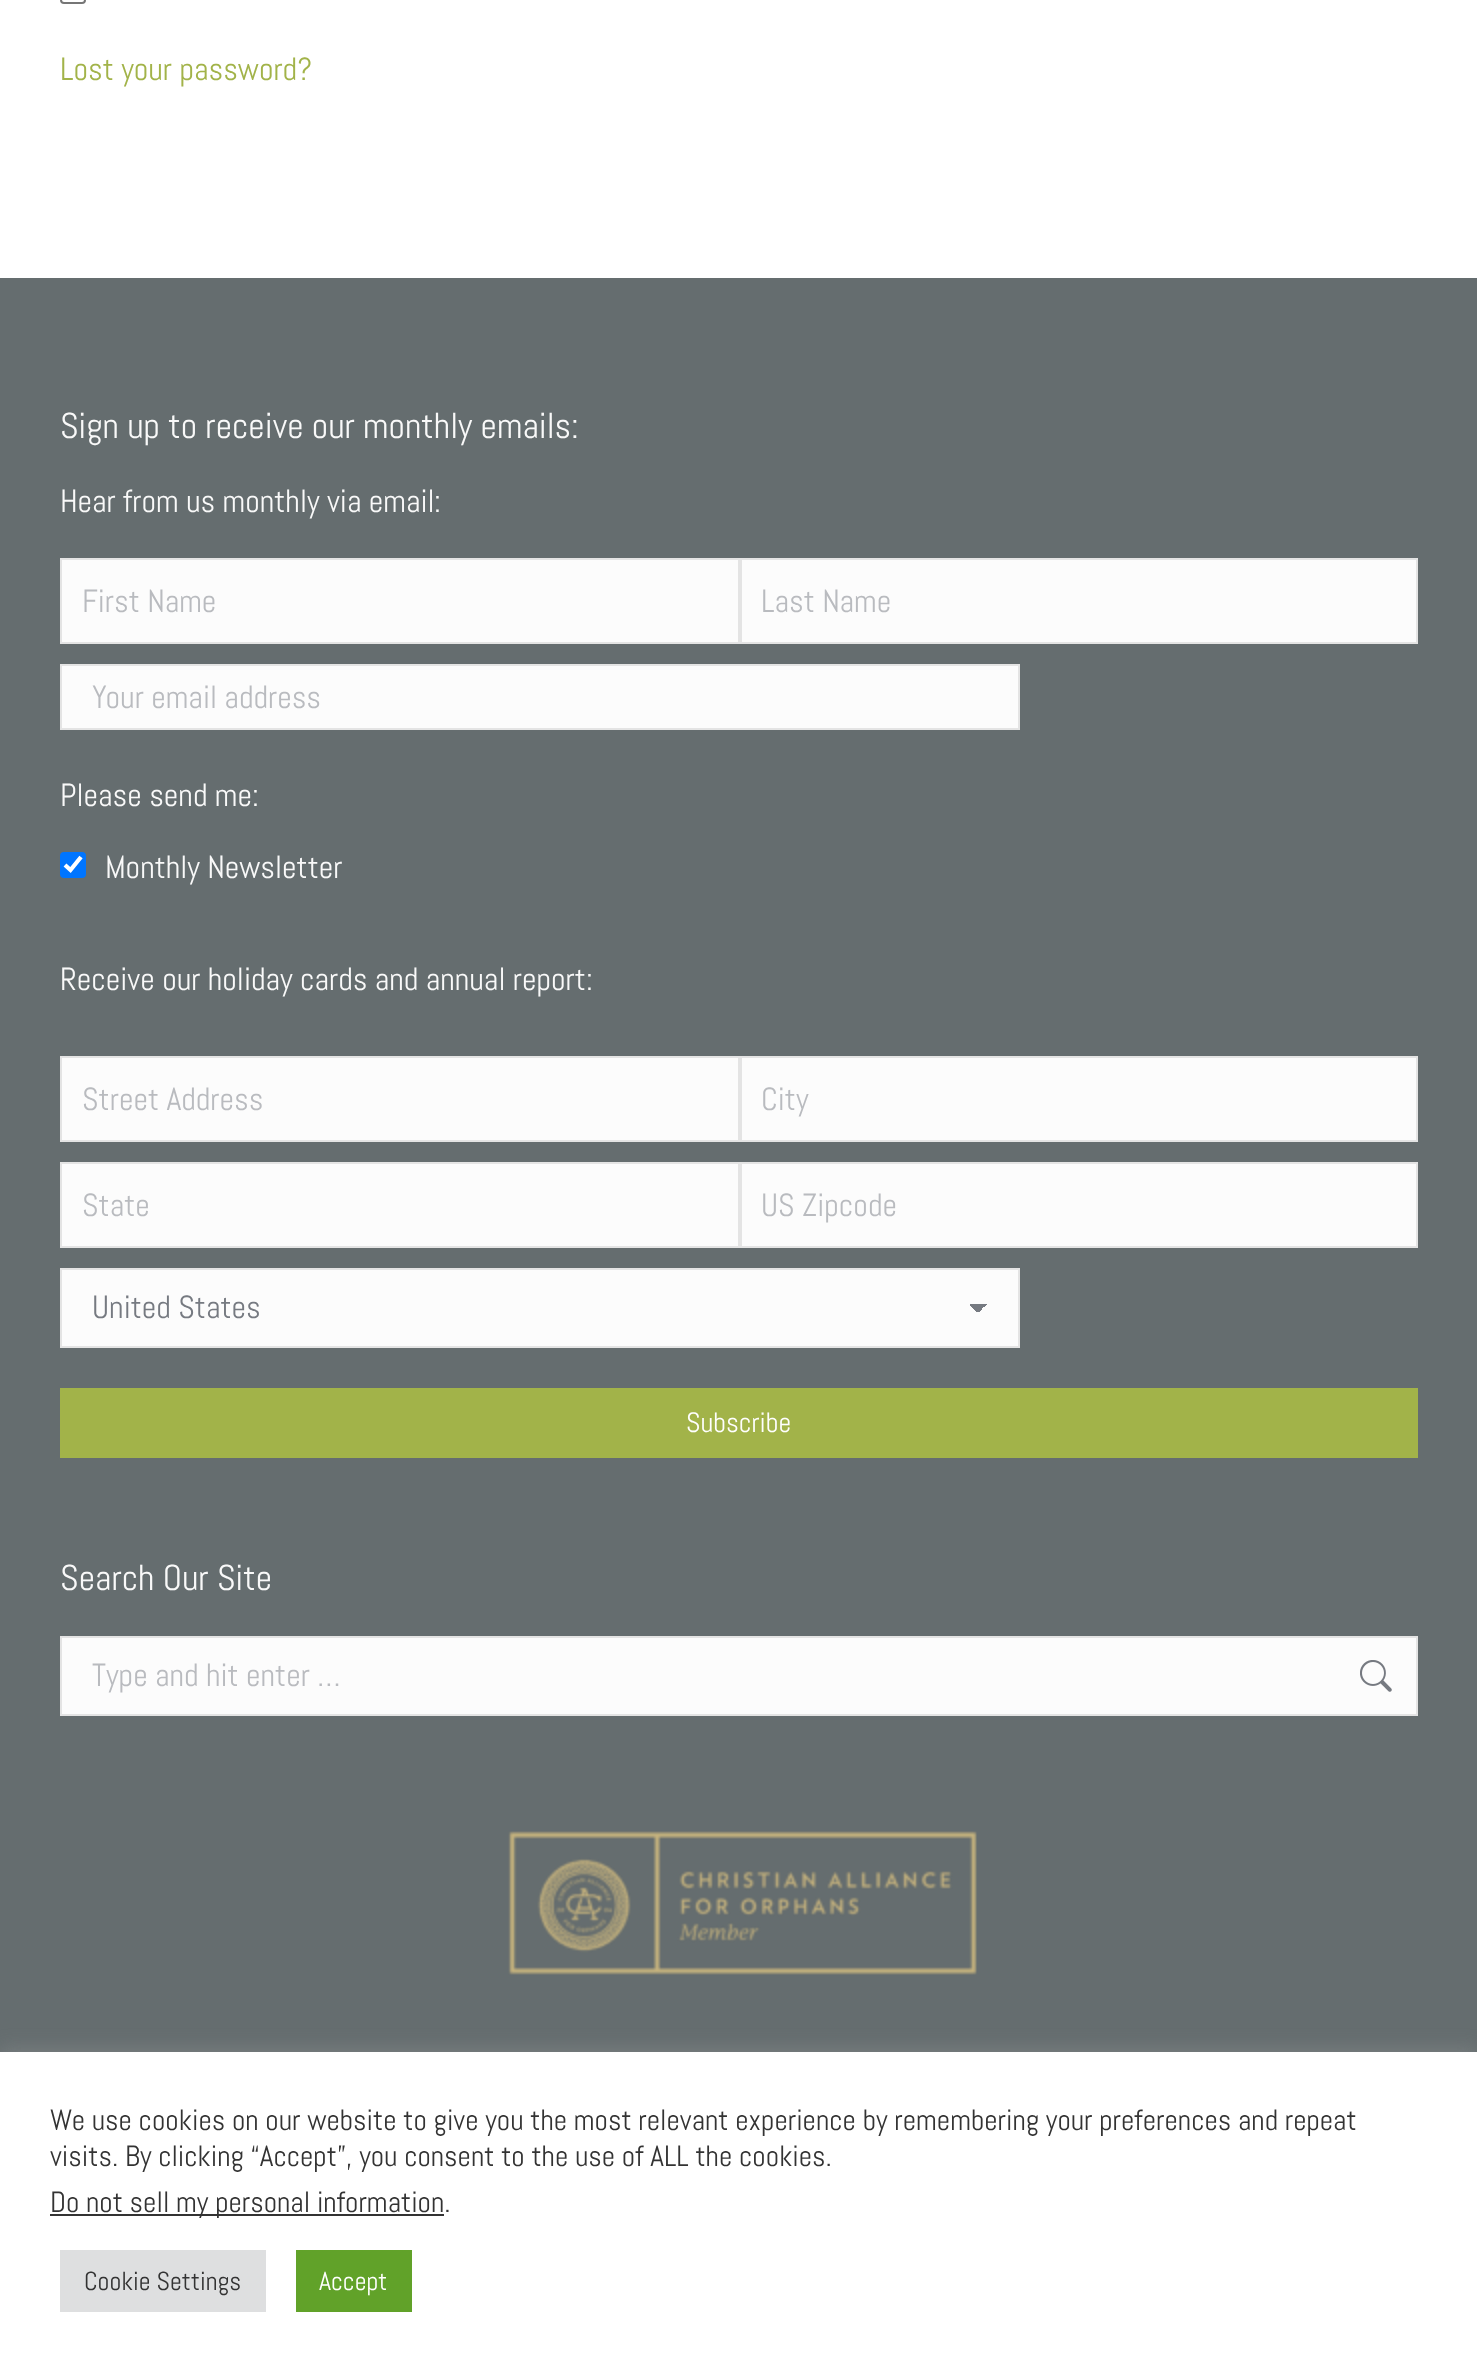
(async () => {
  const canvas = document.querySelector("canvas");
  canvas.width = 1477;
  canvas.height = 2372;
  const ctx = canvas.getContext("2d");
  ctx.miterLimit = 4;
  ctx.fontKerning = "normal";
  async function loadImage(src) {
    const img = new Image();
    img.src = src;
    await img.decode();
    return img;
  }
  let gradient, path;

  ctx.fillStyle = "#ffffff";
  ctx.fillRect(0, 0, 1477, 2372);
  ctx.beginPath();
  ctx.roundRect(61, -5, 24, 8, 3);
  ctx.strokeStyle = "#767676";
  ctx.lineWidth = 2;
  ctx.stroke();
  ctx.fillStyle = "#656d6f";
  ctx.fillRect(0, 278, 1477, 1774);
  ctx.fillStyle = "#fcfcfc";
  ctx.beginPath();
  ctx.rect(61, 559, 678, 84);
  ctx.fill();
  ctx.strokeStyle = "#e4e4e4";
  ctx.stroke();
  ctx.beginPath();
  ctx.rect(741, 559, 676, 84);
  ctx.fill();
  ctx.stroke();
  ctx.beginPath();
  ctx.rect(61, 665, 958, 64);
  ctx.fill();
  ctx.stroke();
  ctx.fillStyle = "#0075ff";
  ctx.beginPath();
  ctx.roundRect(60, 852, 26, 26, 4);
  ctx.fill();
  path = new Path2D("M65 865L70.5 870L81 857");
  ctx.strokeStyle = "#ffffff";
  ctx.lineWidth = 4.2;
  ctx.stroke(path);
  ctx.fillStyle = "#fcfcfc";
  ctx.beginPath();
  ctx.rect(61, 1057, 678, 84);
  ctx.fill();
  ctx.strokeStyle = "#e4e4e4";
  ctx.lineWidth = 2;
  ctx.stroke();
  ctx.beginPath();
  ctx.rect(741, 1057, 676, 84);
  ctx.fill();
  ctx.stroke();
  ctx.beginPath();
  ctx.rect(61, 1163, 678, 84);
  ctx.fill();
  ctx.stroke();
  ctx.beginPath();
  ctx.rect(741, 1163, 676, 84);
  ctx.fill();
  ctx.stroke();
  ctx.fillRect(62, 1270, 956, 76);
  gradient = ctx.createLinearGradient(978, 1303, 988, 1313);
  gradient.addColorStop(0.5, "#767a81");
  gradient.addColorStop(0.5, "#fcfcfc");
  ctx.fillStyle = gradient;
  ctx.fillRect(978, 1304, 9, 8);
  gradient = ctx.createLinearGradient(968, 1313, 978, 1303);
  gradient.addColorStop(0.5, "#fcfcfc");
  gradient.addColorStop(0.5, "#767a81");
  ctx.fillStyle = gradient;
  ctx.fillRect(970, 1304, 8, 8);
  ctx.strokeRect(61, 1269, 958, 78);
  ctx.fillStyle = "#a2b349";
  ctx.fillRect(60, 1388, 1358, 70);
  ctx.fillStyle = "#fcfcfc";
  ctx.beginPath();
  ctx.rect(61, 1637, 1356, 78);
  ctx.fill();
  ctx.stroke();
  ctx.drawImage(await loadImage("img/1.png"), 1360, 1660, 32, 32);
  ctx.drawImage(await loadImage("img/2.png"), 508, 1831, 469, 144);
  ctx.fillStyle = "rgba(172, 171, 171, 0.3)";
  ctx.filter = "blur(10px)";
  ctx.beginPath();
  ctx.rect(0, 2050, 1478, 320);
  ctx.fill();
  ctx.filter = "none";
  for (const [x, y, w, h, color] of [
    [0, 2052, 1477, 320, "#ffffff"],
    [50, 2214, 394, 2, "#333333"],
    [60, 2250, 206, 62, "#dedfe0"],
    [296, 2250, 116, 62, "#61a229"],
  ]) {
    ctx.fillStyle = color;
    ctx.fillRect(x, y, w, h);
  }
  ctx.font = "32px Abel";
  ctx.fillStyle = "#a2b349";
  ctx.fillText("Lost your password?", 60, 80);
  ctx.font = "36px Abel";
  ctx.fillStyle = "#f9f9f9";
  ctx.fillText("Sign up to receive our monthly emails:", 60, 438);
  ctx.font = "32px Abel";
  ctx.fillText("Hear from us monthly via email:", 60, 512);
  ctx.fillStyle = "#b9bbbf";
  for (const [text, x, y] of [
    ["First Name", 82, 612],
    ["Last Name", 761, 612],
    ["Your email address", 92, 708],
  ]) {
    ctx.fillText(text, x, y);
  }
  ctx.fillStyle = "#f9f9f9";
  for (const [text, x, y] of [
    ["Please send me:", 60, 806],
    ["Monthly Newsletter", 105, 878],
    ["Receive our holiday cards and annual report:", 60, 990],
  ]) {
    ctx.fillText(text, x, y);
  }
  ctx.fillStyle = "#b9bbbf";
  for (const [text, x, y] of [
    ["Street Address", 82, 1110],
    ["City", 761, 1110],
    ["State", 82, 1216],
    ["US Zipcode", 761, 1216],
  ]) {
    ctx.fillText(text, x, y);
  }
  ctx.fillStyle = "#767a81";
  ctx.fillText("United States", 92, 1318);
  ctx.font = "28px Abel";
  ctx.fillStyle = "#ffffff";
  ctx.fillText("Subscribe", 686, 1432);
  ctx.font = "36px Abel";
  ctx.fillStyle = "#f9f9f9";
  ctx.fillText("Search Our Site", 60, 1590);
  ctx.font = "32px Abel";
  ctx.fillStyle = "#b9bbbf";
  ctx.fillText("Type and hit enter …", 92, 1686);
  ctx.font = "29.35px Abel";
  ctx.fillStyle = "#333333";
  for (const [text, x, y] of [
    ["We use cookies on our website to give you the most relevant experience by remembering your preferences and repeat", 50, 2130],
    ["visits. By clicking “Accept”, you consent to the use of ALL the cookies.", 50, 2166],
    ["Do not sell my personal information.", 50, 2212],
  ]) {
    ctx.fillText(text, x, y);
  }
  ctx.font = "26px Abel";
  ctx.fillText("Cookie Settings", 84, 2290);
  ctx.fillStyle = "#ffffff";
  ctx.fillText("Accept", 319, 2290);
})();
